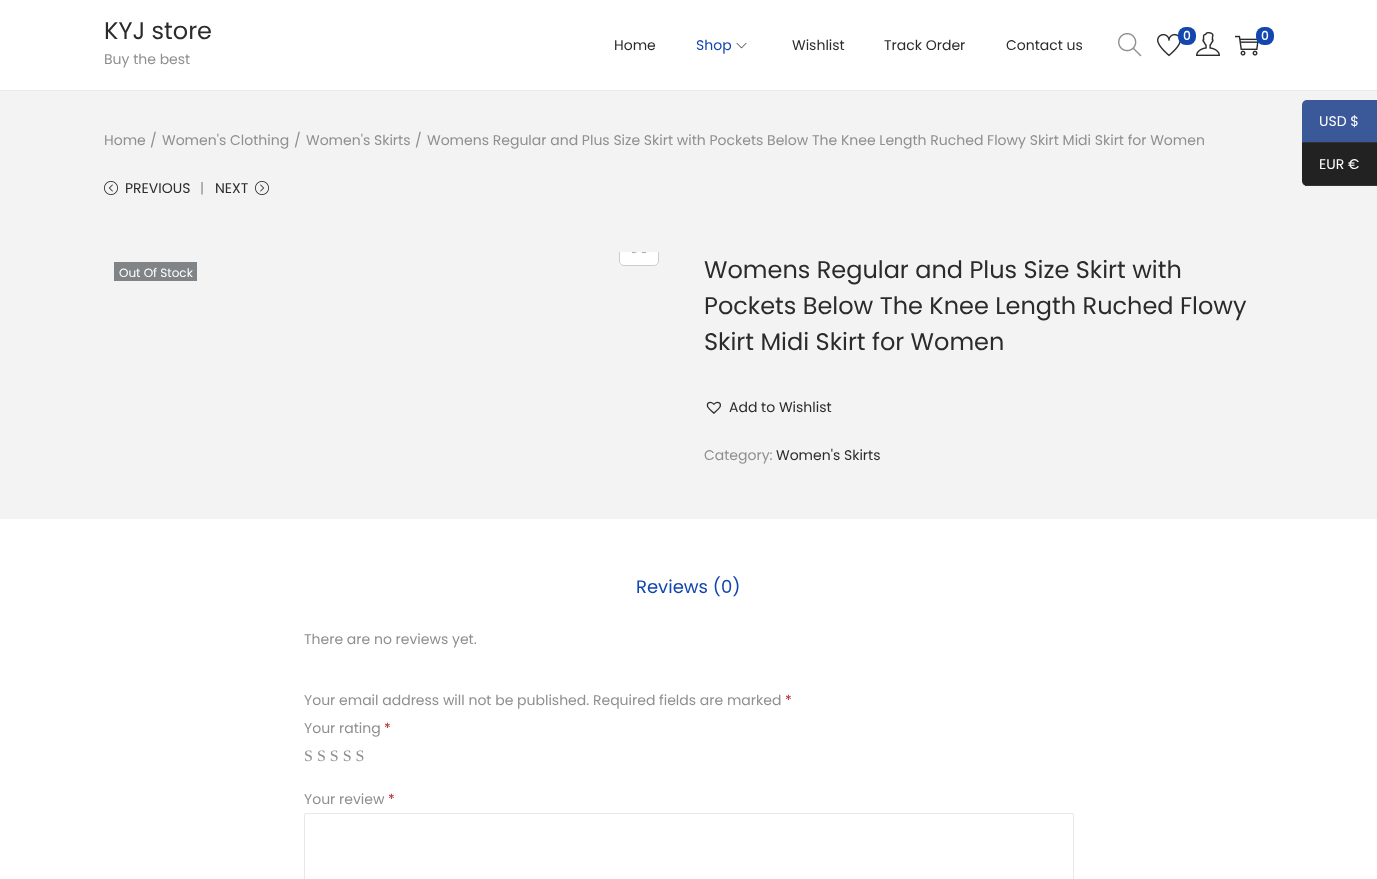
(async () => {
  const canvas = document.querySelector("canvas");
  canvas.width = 1377;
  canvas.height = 879;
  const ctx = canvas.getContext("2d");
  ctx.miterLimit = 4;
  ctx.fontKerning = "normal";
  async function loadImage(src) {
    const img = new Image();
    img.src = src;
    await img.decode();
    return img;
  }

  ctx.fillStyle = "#ffffff";
  ctx.fillRect(0, 0, 1377, 879);
  ctx.fillStyle = "#eaeaea";
  ctx.fillRect(0, 90, 1377, 1);
  ctx.drawImage(await loadImage("img/1.png"), 1118, 33, 24, 24);
  ctx.drawImage(await loadImage("img/2.png"), 1157, 33, 24, 24);
  ctx.fillStyle = "#1346af";
  ctx.beginPath();
  ctx.roundRect(1178, 27, 18, 18, 8);
  ctx.fill();
  ctx.drawImage(await loadImage("img/3.png"), 1196, 32, 24, 24);
  ctx.drawImage(await loadImage("img/4.png"), 1235, 35, 24, 21);
  ctx.beginPath();
  ctx.roundRect(1256, 27, 18, 18, 8);
  ctx.fill();
  ctx.drawImage(await loadImage("img/5.png"), 736, 42, 11, 7);
  ctx.fillStyle = "#f3f3f3";
  ctx.fillRect(0, 91, 1377, 428);
  ctx.drawImage(await loadImage("img/6.png"), 104, 181, 14, 14);
  ctx.drawImage(await loadImage("img/7.png"), 255, 181, 14, 14);
  ctx.fillStyle = "#ffffff";
  ctx.beginPath();
  ctx.roundRect(619, 252, 40, 14, [0, 0, 5, 5]);
  ctx.fill();
  ctx.save();
  ctx.beginPath();
  ctx.rect(104, 252, 570, 29);
  ctx.clip();
  ctx.beginPath();
  ctx.roundRect(619.5, 226.5, 39, 39, 4.5);
  ctx.strokeStyle = "#cccccc";
  ctx.stroke();
  ctx.restore();
  ctx.drawImage(await loadImage("img/8.png"), 631, 252, 16, 2);
  ctx.fillStyle = "#818486";
  ctx.fillRect(114, 262, 83, 19);
  ctx.drawImage(await loadImage("img/9.png"), 706, 401, 15, 13);
  ctx.beginPath();
  ctx.roundRect(304.5, 813.5, 769, 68, 1.5);
  ctx.strokeStyle = "#e8e8e8";
  ctx.stroke();
  ctx.fillStyle = "#3b5998";
  ctx.beginPath();
  ctx.roundRect(1302, 100, 75, 43, [5, 0, 0, 0]);
  ctx.fill();
  ctx.fillStyle = "#333333";
  ctx.fillRect(1302, 142, 75, 1);
  ctx.fillStyle = "#222222";
  ctx.beginPath();
  ctx.roundRect(1302, 143, 75, 43, [0, 0, 0, 5]);
  ctx.fill();
  ctx.fillStyle = "#333333";
  ctx.fillRect(1305, 185, 72, 1);
  ctx.font = "24px Poppins";
  ctx.fillStyle = "#2b2b2b";
  ctx.fillText("KYJ store", 104, 39);
  ctx.font = "14px Poppins";
  ctx.fillStyle = "#8f8f8f";
  ctx.fillText("Buy the best", 104, 64);
  ctx.font = "bold 12px Poppins";
  ctx.fillStyle = "#ffffff";
  ctx.fillText("0", 1183, 40);
  ctx.fillText("0", 1261, 40);
  ctx.font = "14px Poppins";
  ctx.fillStyle = "#2b2b2b";
  ctx.fillText("Home", 614, 50);
  ctx.fillStyle = "#1346af";
  ctx.fillText("Shop", 696, 50);
  ctx.fillStyle = "#2b2b2b";
  for (const [text, x, y] of [
    ["Wishlist", 792, 50],
    ["Track Order", 884, 50],
    ["Contact us", 1006, 50],
  ]) {
    ctx.fillText(text, x, y);
  }
  ctx.fillStyle = "#8f8f8f";
  for (const [text, x, y] of [
    ["Home", 104, 145],
    ["/", 150, 145],
    ["Women's Clothing", 162, 145],
    ["/", 294, 145],
    ["Women's Skirts", 306, 145],
    ["/", 415, 145],
    ["Womens Regular and Plus Size Skirt with Pockets Below The Knee Length Ruched Flowy Skirt Midi Skirt for Women", 427, 145],
  ]) {
    ctx.fillText(text, x, y);
  }
  ctx.fillStyle = "#2b2b2b";
  ctx.fillText("PREVIOUS", 125, 193);
  ctx.fillStyle = "#8f8f8f";
  ctx.fillText("|", 200, 193);
  ctx.fillStyle = "#2b2b2b";
  ctx.fillText("NEXT", 215, 193);
  ctx.font = "12px Poppins";
  ctx.fillStyle = "#ffffff";
  ctx.fillText("Out Of Stock", 119, 277);
  ctx.font = "24px Poppins";
  ctx.fillStyle = "#2b2b2b";
  for (const [text, x, y] of [
    ["Womens Regular and Plus Size Skirt with", 704, 278],
    ["Pockets Below The Knee Length Ruched Flowy", 704, 314],
    ["Skirt Midi Skirt for Women", 704, 350],
  ]) {
    ctx.fillText(text, x, y);
  }
  ctx.font = "14px Poppins";
  ctx.fillText("Add to Wishlist", 729, 412);
  ctx.fillStyle = "#8f8f8f";
  ctx.fillText("Category:", 704, 460);
  ctx.fillStyle = "#2b2b2b";
  ctx.fillText("Women's Skirts", 776, 460);
  ctx.font = "18px Poppins";
  ctx.fillStyle = "#1346af";
  ctx.fillText("Reviews (0)", 636, 593);
  ctx.font = "14px Poppins";
  ctx.fillStyle = "#8f8f8f";
  ctx.fillText("There are no reviews yet.", 304, 644);
  ctx.fillText("Your email address will not be published. Required fields are marked", 304, 705);
  ctx.fillStyle = "#b22222";
  ctx.fillText("*", 785, 705);
  ctx.fillStyle = "#8f8f8f";
  ctx.fillText("Your rating", 304, 733);
  ctx.fillStyle = "#b22222";
  ctx.fillText("*", 384, 733);
  ctx.font = "16px Liberation Serif";
  ctx.fillStyle = "#8f8f8f";
  ctx.fillText("S S S S S", 304, 761);
  ctx.font = "14px Poppins";
  ctx.fillText("Your review", 304, 804);
  ctx.fillStyle = "#b22222";
  ctx.fillText("*", 388, 804);
  ctx.fillStyle = "#ffffff";
  ctx.fillText("USD $", 1319, 126);
  ctx.fillText("EUR €", 1319, 169);
})();
